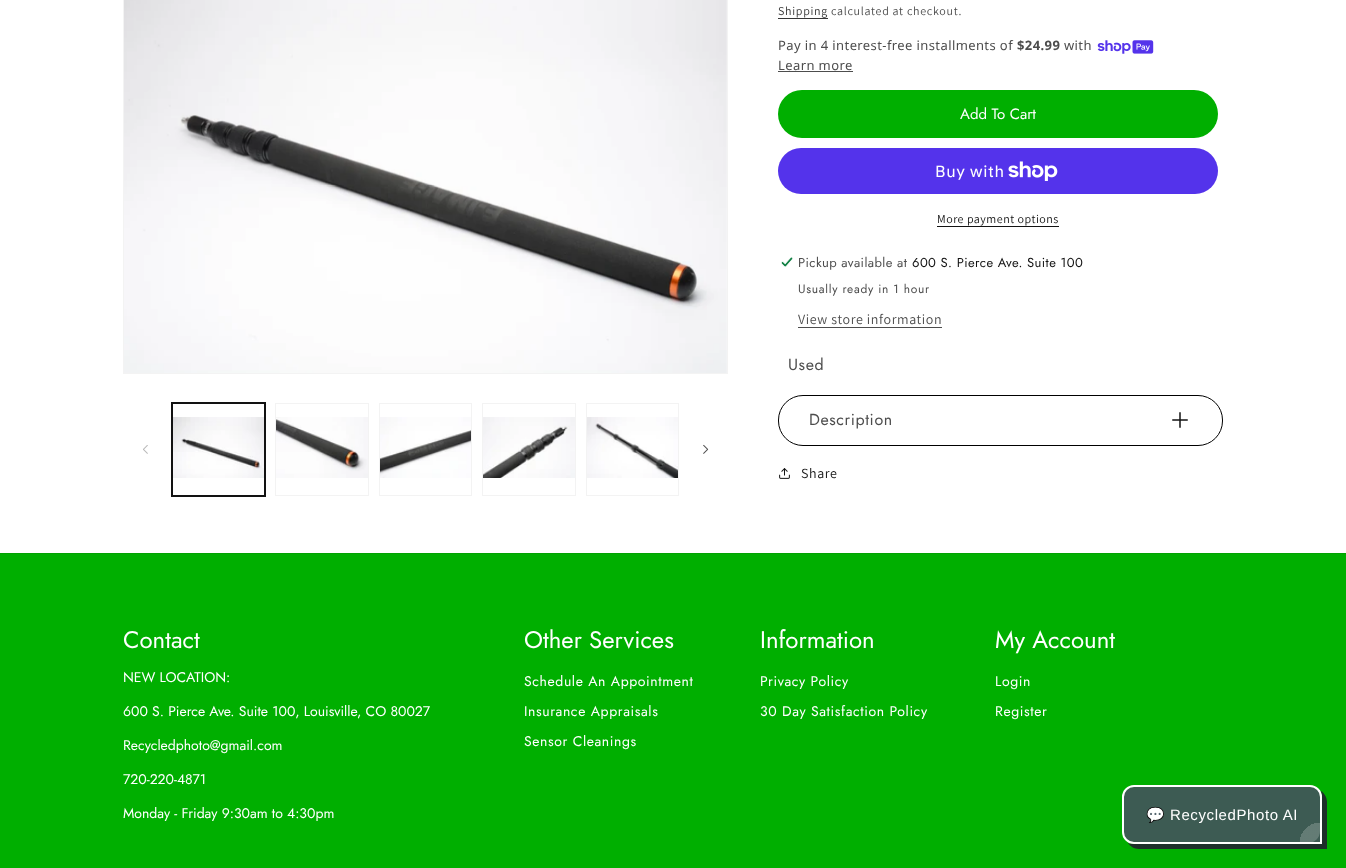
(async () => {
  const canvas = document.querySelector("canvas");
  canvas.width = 1346;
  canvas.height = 868;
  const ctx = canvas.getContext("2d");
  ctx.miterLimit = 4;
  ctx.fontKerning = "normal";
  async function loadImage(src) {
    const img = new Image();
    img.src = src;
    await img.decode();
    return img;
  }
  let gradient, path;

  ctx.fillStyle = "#ffffff";
  ctx.fillRect(0, 0, 1346, 868);
  ctx.strokeStyle = "#f3f3f3";
  ctx.strokeRect(123.5, -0.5, 604, 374);
  ctx.drawImage(await loadImage("img/1.png"), 124, 0, 603, 373);
  ctx.drawImage(await loadImage("img/2.png"), 143, 445, 5, 9);
  ctx.strokeStyle = "#121212";
  ctx.strokeRect(171.5, 402.5, 94, 94);
  ctx.strokeRect(172.5, 403.5, 92, 92);
  ctx.drawImage(await loadImage("img/3.png"), 173, 417, 91, 61);
  ctx.strokeStyle = "#f3f3f3";
  ctx.strokeRect(275.5, 403.5, 93, 92);
  ctx.drawImage(await loadImage("img/4.png"), 276, 417, 92, 61);
  ctx.strokeRect(379.5, 403.5, 92, 92);
  ctx.drawImage(await loadImage("img/5.png"), 380, 417, 91, 61);
  ctx.strokeRect(482.5, 403.5, 93, 92);
  ctx.drawImage(await loadImage("img/6.png"), 483, 417, 92, 61);
  ctx.strokeRect(586.5, 403.5, 92, 92);
  ctx.drawImage(await loadImage("img/7.png"), 587, 417, 91, 61);
  ctx.drawImage(await loadImage("img/8.png"), 703, 444, 6, 10);
  ctx.fillStyle = "#363636";
  ctx.fillRect(778, 18, 50, 1);
  ctx.drawImage(await loadImage("img/9.png"), 1097, 40, 57, 14);
  ctx.fillStyle = "#4d4d4d";
  ctx.fillRect(778, 71, 75, 1);
  ctx.fillStyle = "#00af00";
  ctx.beginPath();
  ctx.roundRect(778, 90, 440, 48, 24);
  ctx.fill();
  ctx.fillStyle = "#5433eb";
  ctx.beginPath();
  ctx.roundRect(778, 148, 440, 46, 23);
  ctx.fill();
  ctx.drawImage(await loadImage("img/10.png"), 1008, 161, 50, 20);
  ctx.fillStyle = "#121212";
  ctx.fillRect(937, 226, 122, 1);
  ctx.drawImage(await loadImage("img/11.png"), 781, 257, 12, 10);
  ctx.fillStyle = "#4d4d4d";
  ctx.fillRect(798, 327, 144, 1);
  ctx.beginPath();
  ctx.roundRect(778.5, 395.5, 444, 50, 24.5);
  ctx.strokeStyle = "#000000";
  ctx.stroke();
  path = new Path2D("M1180 413V427");
  ctx.strokeStyle = "#4d4d4d";
  ctx.lineWidth = 2;
  ctx.lineCap = "round";
  ctx.lineJoin = "round";
  ctx.stroke(path);
  path = new Path2D("M1173 420H1187");
  ctx.strokeStyle = "rgba(18, 18, 18, 0.75)";
  ctx.stroke(path);
  ctx.drawImage(await loadImage("img/12.png"), 779, 468, 11, 11);
  ctx.fillStyle = "#00af00";
  ctx.fillRect(0, 554, 1346, 314);
  ctx.fillStyle = "#01a201";
  ctx.fillRect(0, 553, 1346, 1);
  ctx.fillStyle = "#1e2e2a";
  path = new Path2D("M1128 843C1130 846 1134 849 1139 849H1327V802C1327 797 1324 793 1321 791C1321 793 1322 795 1322 797V844H1134C1132 844 1130 843 1128 843Z");
  ctx.fill(path);
  ctx.fillStyle = "#3d5b53";
  ctx.beginPath();
  ctx.roundRect(1123, 786, 198, 57, [11, 11, 0, 11]);
  ctx.fill();
  ctx.strokeStyle = "#ffffff";
  ctx.lineJoin = "miter";
  ctx.stroke();
  gradient = ctx.createRadialGradient(1320, 843, 0, 1320, 843, 204);
  gradient.addColorStop(0.1, "rgba(255, 255, 255, 0.2)");
  gradient.addColorStop(0.1, "rgba(255, 255, 255, 0)");
  ctx.fillStyle = gradient;
  ctx.beginPath();
  ctx.roundRect(1124, 788, 196, 55, 12);
  ctx.fill();
  ctx.letterSpacing = "0.7px";
  ctx.font = "12px Assistant";
  ctx.fillStyle = "#363636";
  ctx.fillText("Shipping", 778, 15);
  ctx.fillStyle = "#4d4d4d";
  ctx.fillText("calculated at checkout.", 831, 15);
  ctx.letterSpacing = "0.4px";
  ctx.font = "13px Noto Sans";
  ctx.fillText("Pay in 4 interest-free installments of", 778, 50);
  ctx.font = "bold 13px Noto Sans";
  ctx.fillText("$24.99", 1017, 50);
  ctx.font = "13px Noto Sans";
  ctx.fillText("with", 1064, 50);
  ctx.fillText("Learn more", 778, 70);
  ctx.letterSpacing = "0px";
  ctx.font = "15px Jost";
  ctx.fillStyle = "#ffffff";
  ctx.fillText("Add To Cart", 960, 119);
  ctx.letterSpacing = "0.6px";
  ctx.font = "16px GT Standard";
  ctx.fillText("Buy with", 935, 177);
  ctx.letterSpacing = "0.5px";
  ctx.font = "12px Assistant";
  ctx.fillStyle = "#121212";
  ctx.fillText("More payment options", 937, 223);
  ctx.letterSpacing = "0.4px";
  ctx.font = "13px Jost";
  ctx.fillStyle = "#4d4d4d";
  ctx.fillText("Pickup available at", 798, 267);
  ctx.fillStyle = "#121212";
  ctx.fillText("600 S. Pierce Ave. Suite 100", 912, 267);
  ctx.letterSpacing = "0.7px";
  ctx.font = "12px Jost";
  ctx.fillStyle = "#4d4d4d";
  ctx.fillText("Usually ready in 1 hour", 798, 293);
  ctx.letterSpacing = "0.6px";
  ctx.font = "14px Assistant";
  ctx.fillText("View store information", 798, 324);
  ctx.font = "16px Jost";
  ctx.fillText("Used", 788, 370);
  ctx.fillText("Description", 809, 425);
  ctx.font = "14px Assistant";
  ctx.fillStyle = "#121212";
  ctx.fillText("Share", 801, 478);
  ctx.letterSpacing = "0px";
  ctx.font = "24px Jost";
  ctx.fillStyle = "#ffffff";
  ctx.fillText("Contact", 123, 648);
  ctx.font = "14px Jost";
  for (const [text, x, y] of [
    ["NEW LOCATION:", 123, 682],
    ["600 S. Pierce Ave. Suite 100, Louisville, CO 80027", 123, 716],
    ["Recycledphoto@gmail.com", 123, 750],
    ["720-220-4871", 123, 784],
    ["Monday - Friday 9:30am to 4:30pm", 123, 818],
  ]) {
    ctx.fillText(text, x, y);
  }
  ctx.font = "24px Jost";
  ctx.fillText("Other Services", 524, 648);
  ctx.letterSpacing = "0.6px";
  ctx.font = "14px Jost";
  for (const [text, x, y] of [
    ["Schedule An Appointment", 524, 686],
    ["Insurance Appraisals", 524, 716],
    ["Sensor Cleanings", 524, 746],
  ]) {
    ctx.fillText(text, x, y);
  }
  ctx.letterSpacing = "0px";
  ctx.font = "24px Jost";
  ctx.fillText("Information", 760, 648);
  ctx.letterSpacing = "0.6px";
  ctx.font = "14px Jost";
  ctx.fillText("Privacy Policy", 760, 686);
  ctx.fillText("30 Day Satisfaction Policy", 760, 716);
  ctx.letterSpacing = "0px";
  ctx.font = "24px Jost";
  ctx.fillText("My Account", 995, 648);
  ctx.letterSpacing = "0.6px";
  ctx.font = "14px Jost";
  ctx.fillText("Login", 995, 686);
  ctx.fillText("Register", 995, 716);
  ctx.font = "15px Noto Color Emoji";
  ctx.fillText("💬", 1146, 820);
  ctx.font = "15px Liberation Sans";
  ctx.fillText("RecycledPhoto AI", 1170, 820);
})();
